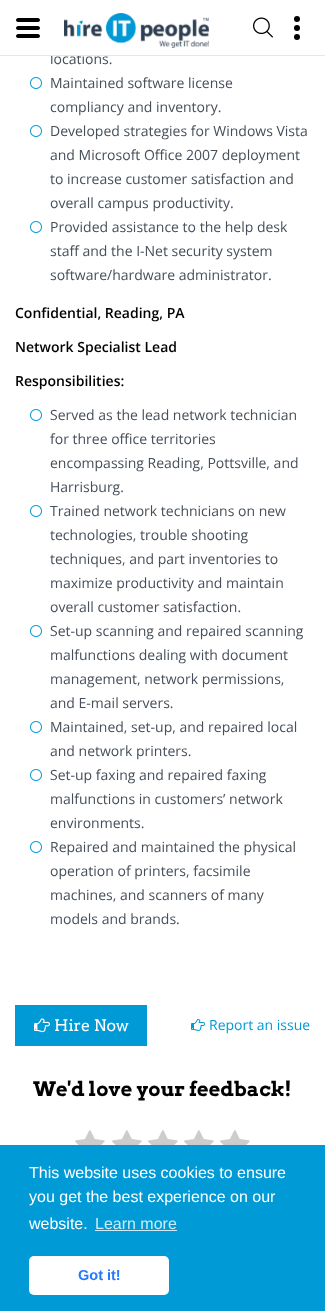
(async () => {
  const canvas = document.querySelector("canvas");
  canvas.width = 325;
  canvas.height = 1311;
  const ctx = canvas.getContext("2d");
  ctx.miterLimit = 4;
  ctx.fontKerning = "normal";
  async function loadImage(src) {
    const img = new Image();
    img.src = src;
    await img.decode();
    return img;
  }
  let path;

  ctx.fillStyle = "#ffffff";
  ctx.fillRect(0, 0, 325, 1311);
  ctx.fillStyle = "#000000";
  path = new Path2D("M38 30H18C17 30 16 29 16 28C16 27 17 26 18 26H38C39 26 40 27 40 28C40 29 39 30 38 30ZM38 38H18C17 38 16 37 16 36C16 35 17 34 18 34H38C39 34 40 35 40 36C40 37 39 38 38 38ZM38 22H18C17 22 16 21 16 20C16 19 17 18 18 18H38C39 18 40 19 40 20C40 21 39 22 38 22Z");
  ctx.fill(path);
  ctx.drawImage(await loadImage("img/1.png"), 64, 13, 145, 35);
  ctx.drawImage(await loadImage("img/2.png"), 253, 17, 20, 21);
  ctx.beginPath();
  ctx.arc(297, 28, 3, 0, Math.PI * 2);
  ctx.fill();
  ctx.beginPath();
  ctx.arc(297, 19, 3, 0, Math.PI * 2);
  ctx.fill();
  ctx.beginPath();
  ctx.arc(297, 37, 3, 0, Math.PI * 2);
  ctx.fill();
  ctx.drawImage(await loadImage("img/3.png"), 30, 77, 12, 12);
  ctx.drawImage(await loadImage("img/3.png"), 30, 125, 12, 12);
  ctx.drawImage(await loadImage("img/3.png"), 30, 221, 12, 12);
  ctx.drawImage(await loadImage("img/3.png"), 30, 409, 12, 12);
  ctx.drawImage(await loadImage("img/3.png"), 30, 505, 12, 12);
  ctx.drawImage(await loadImage("img/3.png"), 30, 625, 12, 12);
  ctx.drawImage(await loadImage("img/3.png"), 30, 721, 12, 12);
  ctx.drawImage(await loadImage("img/3.png"), 30, 769, 12, 12);
  ctx.drawImage(await loadImage("img/3.png"), 30, 841, 12, 12);
  ctx.fillStyle = "#009bd6";
  ctx.fillRect(15, 1005, 132, 41);
  ctx.drawImage(await loadImage("img/4.png"), 34, 1018, 16, 15);
  ctx.drawImage(await loadImage("img/5.png"), 191, 1019, 14, 12);
  ctx.drawImage(await loadImage("img/6.png"), 75, 1130, 30, 15);
  ctx.drawImage(await loadImage("img/6.png"), 112, 1130, 30, 15);
  ctx.drawImage(await loadImage("img/6.png"), 148, 1130, 30, 15);
  ctx.drawImage(await loadImage("img/6.png"), 184, 1130, 30, 15);
  ctx.drawImage(await loadImage("img/6.png"), 220, 1130, 30, 15);
  ctx.fillRect(0, 1145, 325, 166);
  ctx.fillStyle = "#ccebf7";
  ctx.fillRect(95, 1230, 82, 1);
  ctx.fillStyle = "#ffffff";
  ctx.beginPath();
  ctx.roundRect(29, 1256, 140, 39, 5);
  ctx.fill();
  ctx.font = "14px Open Sans";
  ctx.fillStyle = "#464f59";
  ctx.fillText("locations.", 50, 64);
  ctx.fillStyle = "#e5e7e9";
  ctx.fillRect(0, 55, 325, 1);
  ctx.fillStyle = "#ffffff";
  ctx.fillRect(51, 53, 33, 2);
  ctx.fillStyle = "#464f59";
  for (const [text, x, y] of [
    ["Maintained software license", 50, 88],
    ["compliancy and inventory.", 50, 112],
    ["Developed strategies for Windows Vista", 50, 136],
    ["and Microsoft Office 2007 deployment", 50, 160],
    ["to increase customer satisfaction and", 50, 184],
    ["overall campus productivity.", 50, 208],
    ["Provided assistance to the help desk", 50, 232],
    ["staff and the I-Net security system", 50, 256],
    ["software/hardware administrator.", 50, 280],
  ]) {
    ctx.fillText(text, x, y);
  }
  ctx.font = "600 14px Open Sans";
  ctx.fillStyle = "#000000";
  for (const [text, x, y] of [
    ["Confidential, Reading, PA", 15, 318],
    ["Network Specialist Lead", 15, 352],
    ["Responsibilities:", 15, 386],
  ]) {
    ctx.fillText(text, x, y);
  }
  ctx.font = "14px Open Sans";
  ctx.fillStyle = "#464f59";
  for (const [text, x, y] of [
    ["Served as the lead network technician", 50, 420],
    ["for three office territories", 50, 444],
    ["encompassing Reading, Pottsville, and", 50, 468],
    ["Harrisburg.", 50, 492],
    ["Trained network technicians on new", 50, 516],
    ["technologies, trouble shooting", 50, 540],
    ["techniques, and part inventories to", 50, 564],
    ["maximize productivity and maintain", 50, 588],
    ["overall customer satisfaction.", 50, 612],
    ["Set-up scanning and repaired scanning", 50, 636],
    ["malfunctions dealing with document", 50, 660],
    ["management, network permissions,", 50, 684],
    ["and E-mail servers.", 50, 708],
    ["Maintained, set-up, and repaired local", 50, 732],
    ["and network printers.", 50, 756],
    ["Set-up faxing and repaired faxing", 50, 780],
    ["malfunctions in customers’ network", 50, 804],
    ["environments.", 50, 828],
    ["Repaired and maintained the physical", 50, 852],
    ["operation of printers, facsimile", 50, 876],
    ["machines, and scanners of many", 50, 900],
    ["models and brands.", 50, 924],
  ]) {
    ctx.fillText(text, x, y);
  }
  ctx.font = "16px Arvo";
  ctx.fillStyle = "#ffffff";
  ctx.fillText("Hire Now", 54, 1031);
  ctx.font = "14px Open Sans";
  ctx.fillStyle = "#009bd6";
  ctx.fillText("Report an issue", 209, 1030);
  ctx.font = "bold 20px Arvo";
  ctx.fillStyle = "#000000";
  ctx.fillText("We'd love your feedback!", 33, 1096);
  ctx.font = "16px Liberation Sans";
  ctx.fillStyle = "#ffffff";
  for (const [text, x, y] of [
    ["This website uses cookies to ensure", 29, 1178],
    ["you get the best experience on our", 29, 1202],
    ["website.", 29, 1229],
  ]) {
    ctx.fillText(text, x, y);
  }
  ctx.fillStyle = "#ccebf7";
  ctx.fillText("Learn more", 95, 1229);
  ctx.font = "bold 14.5px Liberation Sans";
  ctx.fillStyle = "#237afc";
  ctx.fillText("Got it!", 78, 1280);
})();
